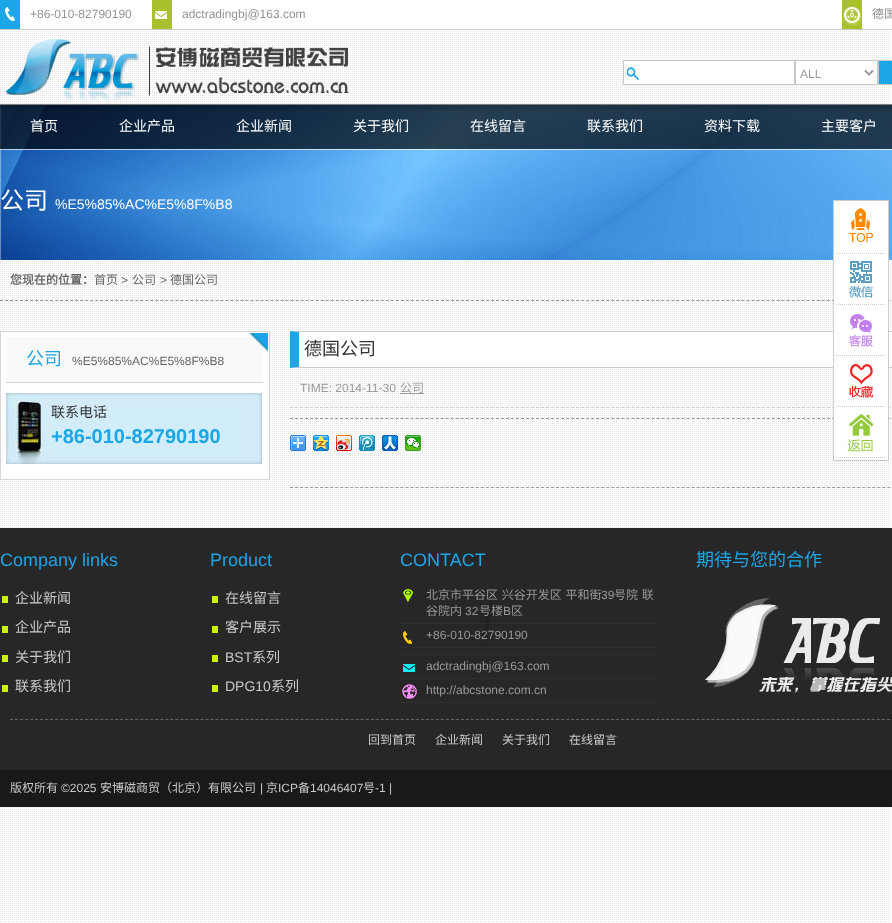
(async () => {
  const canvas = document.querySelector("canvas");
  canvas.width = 892;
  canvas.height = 923;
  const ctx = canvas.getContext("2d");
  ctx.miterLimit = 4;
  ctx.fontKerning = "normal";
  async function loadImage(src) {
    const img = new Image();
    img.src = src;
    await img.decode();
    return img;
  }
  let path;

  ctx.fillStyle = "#ffffff";
  ctx.fillRect(0, 0, 892, 923);
  ctx.drawImage(await loadImage("img/1.png"), 0, 30, 891, 892);
  ctx.fillStyle = "#c8c8c8";
  ctx.fillRect(0, 29, 892, 1);
  ctx.drawImage(await loadImage("img/2.png"), 0, 0, 20, 29);
  ctx.drawImage(await loadImage("img/3.png"), 152, 0, 20, 29);
  ctx.drawImage(await loadImage("img/4.png"), 842, 0, 20, 29);
  ctx.drawImage(await loadImage("img/5.png"), 5, 37, 344, 63);
  ctx.fillStyle = "#ffffff";
  ctx.fillRect(624, 61, 169, 23);
  ctx.drawImage(await loadImage("img/6.png"), 627, 67, 12, 13);
  ctx.strokeStyle = "#c8c8c8";
  ctx.strokeRect(623.5, 60.5, 171, 24);
  ctx.beginPath();
  ctx.rect(795.5, 60.5, 82, 24);
  ctx.fill();
  ctx.stroke();
  path = new Path2D("M865 70.5L869 74.5L873 70.5");
  ctx.strokeStyle = "#999999";
  ctx.lineWidth = 2;
  ctx.stroke(path);
  ctx.fillStyle = "#1ba6e7";
  ctx.beginPath();
  ctx.rect(878.5, 60.5, 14, 24);
  ctx.fill();
  ctx.strokeStyle = "#c8c8c8";
  ctx.lineWidth = 1;
  ctx.stroke();
  ctx.drawImage(await loadImage("img/8.png"), 0, 105, 892, 155);
  ctx.drawImage(await loadImage("img/7.png"), 0, 104, 892, 46);
  path = new Path2D("M0 300.5H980");
  ctx.strokeStyle = "#999999";
  ctx.setLineDash([3, 2.01]);
  ctx.stroke(path);
  ctx.fillStyle = "#ffffff";
  ctx.fillRect(300, 333, 591, 33);
  ctx.fillStyle = "#cccccc";
  path = new Path2D("M290 331H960L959 332H299Z");
  ctx.fill(path);
  path = new Path2D("M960 368H290L299 367H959Z");
  ctx.fill(path);
  path = new Path2D("M290 407.5H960");
  ctx.strokeStyle = "#cccccc";
  ctx.setLineDash([3, 2.02]);
  ctx.stroke(path);
  path = new Path2D("M290 418.5H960");
  ctx.strokeStyle = "#999999";
  ctx.stroke(path);
  ctx.fillStyle = "#ffffff";
  ctx.beginPath();
  ctx.rect(833.5, 200.5, 55, 260);
  ctx.fill();
  ctx.strokeStyle = "#cccccc";
  ctx.setLineDash([]);
  ctx.stroke();
  ctx.drawImage(await loadImage("img/9.png"), 849, 208, 24, 34);
  path = new Path2D("M836 253.5H886");
  ctx.setLineDash([1, 1]);
  ctx.stroke(path);
  ctx.drawImage(await loadImage("img/10.png"), 849, 261, 24, 37);
  path = new Path2D("M836 304.5H886");
  ctx.stroke(path);
  ctx.drawImage(await loadImage("img/11.png"), 849, 314, 24, 33);
  path = new Path2D("M836 355.5H886");
  ctx.stroke(path);
  ctx.drawImage(await loadImage("img/12.png"), 849, 364, 24, 34);
  path = new Path2D("M836 406.5H886");
  ctx.stroke(path);
  ctx.drawImage(await loadImage("img/13.png"), 847, 414, 26, 38);
  path = new Path2D("M836 457.5H886");
  ctx.stroke(path);
  ctx.fillRect(2, 333, 267, 145);
  ctx.strokeStyle = "#d6d6d6";
  ctx.setLineDash([]);
  ctx.strokeRect(0.5, 331.5, 269, 148);
  ctx.fillStyle = "#f9f9f9";
  ctx.fillRect(6, 337, 257, 45);
  ctx.drawImage(await loadImage("img/14.png"), 250, 333, 18, 18);
  ctx.fillStyle = "#d6d6d6";
  ctx.fillRect(6, 382, 257, 1);
  ctx.drawImage(await loadImage("img/15.png"), 6, 393, 256, 71);
  ctx.fillStyle = "#1ba6e7";
  path = new Path2D("M290 368V331L299 332V367Z");
  ctx.fill(path);
  ctx.fillStyle = "#999999";
  ctx.fillRect(400, 393, 24, 1);
  ctx.drawImage(await loadImage("img/16.png"), 290, 435, 16, 16);
  ctx.drawImage(await loadImage("img/17.png"), 313, 435, 16, 16);
  ctx.drawImage(await loadImage("img/18.png"), 336, 435, 16, 16);
  ctx.drawImage(await loadImage("img/19.png"), 359, 435, 16, 16);
  ctx.drawImage(await loadImage("img/20.png"), 382, 435, 16, 16);
  ctx.drawImage(await loadImage("img/21.png"), 405, 435, 16, 16);
  path = new Path2D("M290 487.5H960");
  ctx.strokeStyle = "#999999";
  ctx.setLineDash([3, 2.02]);
  ctx.stroke(path);
  for (const [x, y, w, h, color] of [
    [0, 528, 892, 242, "#272727"],
    [2, 596, 6, 7, "#caf501"],
    [2, 626, 6, 7, "#caf501"],
    [2, 655, 6, 7, "#caf501"],
    [2, 685, 6, 7, "#caf501"],
    [212, 596, 6, 7, "#caf501"],
    [212, 626, 6, 7, "#caf501"],
    [212, 655, 6, 7, "#caf501"],
    [212, 685, 6, 7, "#caf501"],
  ]) {
    ctx.fillStyle = color;
    ctx.fillRect(x, y, w, h);
  }
  ctx.drawImage(await loadImage("img/22.png"), 403, 589, 89, 34);
  ctx.fillStyle = "#2e2e2e";
  ctx.fillRect(400, 623, 256, 1);
  ctx.drawImage(await loadImage("img/23.png"), 403, 624, 86, 20);
  ctx.fillRect(400, 647, 256, 1);
  ctx.fillRect(400, 654, 256, 1);
  ctx.drawImage(await loadImage("img/24.png"), 403, 664, 12, 8);
  ctx.fillRect(400, 678, 256, 1);
  ctx.drawImage(await loadImage("img/25.png"), 402, 684, 15, 15);
  ctx.fillRect(400, 702, 256, 1);
  ctx.drawImage(await loadImage("img/26.png"), 705, 598, 187, 95);
  path = new Path2D("M10 719.5H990");
  ctx.strokeStyle = "#666666";
  ctx.setLineDash([3, 2.01]);
  ctx.stroke(path);
  ctx.fillStyle = "#191919";
  ctx.fillRect(0, 770, 892, 37);
  ctx.font = "12px Liberation Sans";
  ctx.fillStyle = "#939393";
  ctx.fillText("+86-010-82790190", 30, 18);
  ctx.fillText("adctradingbj@163.com", 182, 18);
  ctx.font = "12px Noto Sans CJK SC";
  ctx.fillText("德国", 872, 18);
  ctx.font = "12px Liberation Sans";
  ctx.fillStyle = "#999999";
  ctx.fillText("ALL", 800, 78);
  ctx.font = "14px Noto Sans CJK SC";
  ctx.fillStyle = "#ffffff";
  for (const [text, x, y] of [
    ["首页", 30, 131],
    ["企业产品", 119, 131],
    ["企业新闻", 236, 131],
    ["关于我们", 353, 131],
    ["在线留言", 470, 131],
    ["联系我们", 587, 131],
    ["资料下载", 704, 131],
    ["主要客户", 821, 131],
  ]) {
    ctx.fillText(text, x, y);
  }
  ctx.font = "24px Noto Sans CJK SC";
  ctx.fillText("公司", 0, 209);
  ctx.font = "14px Liberation Sans";
  ctx.fillText("%E5%85%AC%E5%8F%B8", 55, 209);
  ctx.font = "bold 12px Noto Sans CJK SC";
  ctx.fillStyle = "#666666";
  ctx.fillText("您现在的位置：", 10, 284);
  ctx.font = "12px Noto Sans CJK SC";
  ctx.fillText("首页", 94, 284);
  ctx.font = "12px Liberation Sans";
  ctx.fillText(">", 121, 284);
  ctx.font = "12px Noto Sans CJK SC";
  ctx.fillText("公司", 132, 284);
  ctx.font = "12px Liberation Sans";
  ctx.fillText(">", 160, 284);
  ctx.font = "12px Noto Sans CJK SC";
  ctx.fillText("德国公司", 170, 284);
  ctx.font = "18px Noto Sans CJK SC";
  ctx.fillStyle = "#1ba6e7";
  ctx.fillText("公司", 26, 365);
  ctx.font = "12px Liberation Sans";
  ctx.fillStyle = "#666666";
  ctx.fillText("%E5%85%AC%E5%8F%B8", 72, 365);
  ctx.font = "14px Noto Sans CJK SC";
  ctx.fillStyle = "#333333";
  ctx.fillText("联系电话", 51, 417);
  ctx.font = "bold 20px Liberation Sans";
  ctx.fillStyle = "#1ba6e7";
  ctx.fillText("+86-010-82790190", 51, 443);
  ctx.font = "18px Noto Sans CJK SC";
  ctx.fillStyle = "#333333";
  ctx.fillText("德国公司", 304, 355);
  ctx.font = "12px Liberation Sans";
  ctx.fillStyle = "#999999";
  ctx.fillText("TIME: 2014-11-30", 300, 392);
  ctx.font = "12px Noto Sans CJK SC";
  ctx.fillText("公司", 400, 392);
  ctx.font = "18px Liberation Sans";
  ctx.fillStyle = "#1ba6e7";
  ctx.fillText("Company links", 0, 566);
  ctx.font = "14px Noto Sans CJK SC";
  ctx.fillStyle = "#cacaca";
  for (const [text, x, y] of [
    ["企业新闻", 15, 603],
    ["企业产品", 15, 632],
    ["关于我们", 15, 662],
    ["联系我们", 15, 691],
  ]) {
    ctx.fillText(text, x, y);
  }
  ctx.font = "18px Liberation Sans";
  ctx.fillStyle = "#1ba6e7";
  ctx.fillText("Product", 210, 566);
  ctx.font = "14px Noto Sans CJK SC";
  ctx.fillStyle = "#cacaca";
  ctx.fillText("在线留言", 225, 603);
  ctx.fillText("客户展示", 225, 632);
  ctx.font = "14px Liberation Sans";
  ctx.fillText("BST", 225, 662);
  ctx.font = "14px Noto Sans CJK SC";
  ctx.fillText("系列", 252, 662);
  ctx.font = "14px Liberation Sans";
  ctx.fillText("DPG10", 225, 691);
  ctx.font = "14px Noto Sans CJK SC";
  ctx.fillText("系列", 271, 691);
  ctx.font = "18px Liberation Sans";
  ctx.fillStyle = "#1ba6e7";
  ctx.fillText("CONTACT", 400, 566);
  ctx.wordSpacing = "1px";
  ctx.font = "12px Noto Sans CJK SC";
  ctx.fillStyle = "#999999";
  ctx.fillText("北京市平谷区 兴谷开发区 平和街", 426, 599);
  ctx.wordSpacing = "0px";
  ctx.font = "12px Liberation Sans";
  ctx.fillText("39", 601, 599);
  ctx.wordSpacing = "1px";
  ctx.font = "12px Noto Sans CJK SC";
  ctx.fillText("号院 联", 614, 599);
  ctx.wordSpacing = "0px";
  ctx.fillText("谷院内", 426, 615);
  ctx.font = "12px Liberation Sans";
  ctx.fillText("32", 465, 615);
  ctx.font = "12px Noto Sans CJK SC";
  ctx.fillText("号楼", 479, 615);
  ctx.font = "12px Liberation Sans";
  ctx.fillText("B", 503, 615);
  ctx.font = "12px Noto Sans CJK SC";
  ctx.fillText("区", 511, 615);
  ctx.font = "12px Liberation Sans";
  for (const [text, x, y] of [
    ["+86-010-82790190", 426, 639],
    ["adctradingbj@163.com", 426, 670],
    ["http://abcstone.com.cn", 426, 694],
  ]) {
    ctx.fillText(text, x, y);
  }
  ctx.font = "18px Noto Sans CJK SC";
  ctx.fillStyle = "#1ba6e7";
  ctx.fillText("期待与您的合作", 696, 566);
  ctx.font = "12px Noto Sans CJK SC";
  ctx.fillStyle = "#cacaca";
  for (const [text, x, y] of [
    ["回到首页", 368, 744],
    ["企业新闻", 435, 744],
    ["关于我们", 502, 744],
    ["在线留言", 569, 744],
    ["版权所有", 10, 792],
  ]) {
    ctx.fillText(text, x, y);
  }
  ctx.font = "12px Liberation Sans";
  ctx.fillText("©2025", 61, 792);
  ctx.font = "12px Noto Sans CJK SC";
  ctx.fillText("安博磁商贸（北京）有限公司", 100, 792);
  ctx.font = "12px Liberation Sans";
  ctx.fillText("|", 260, 792);
  ctx.font = "12px Noto Sans CJK SC";
  ctx.fillText("京", 266, 792);
  ctx.font = "12px Liberation Sans";
  ctx.fillText("ICP", 278, 792);
  ctx.font = "12px Noto Sans CJK SC";
  ctx.fillText("备", 298, 792);
  ctx.font = "12px Liberation Sans";
  ctx.fillText("14046407", 310, 792);
  ctx.font = "12px Noto Sans CJK SC";
  ctx.fillText("号", 363, 792);
  ctx.font = "12px Liberation Sans";
  ctx.fillText("-1 |", 375, 792);
})();
